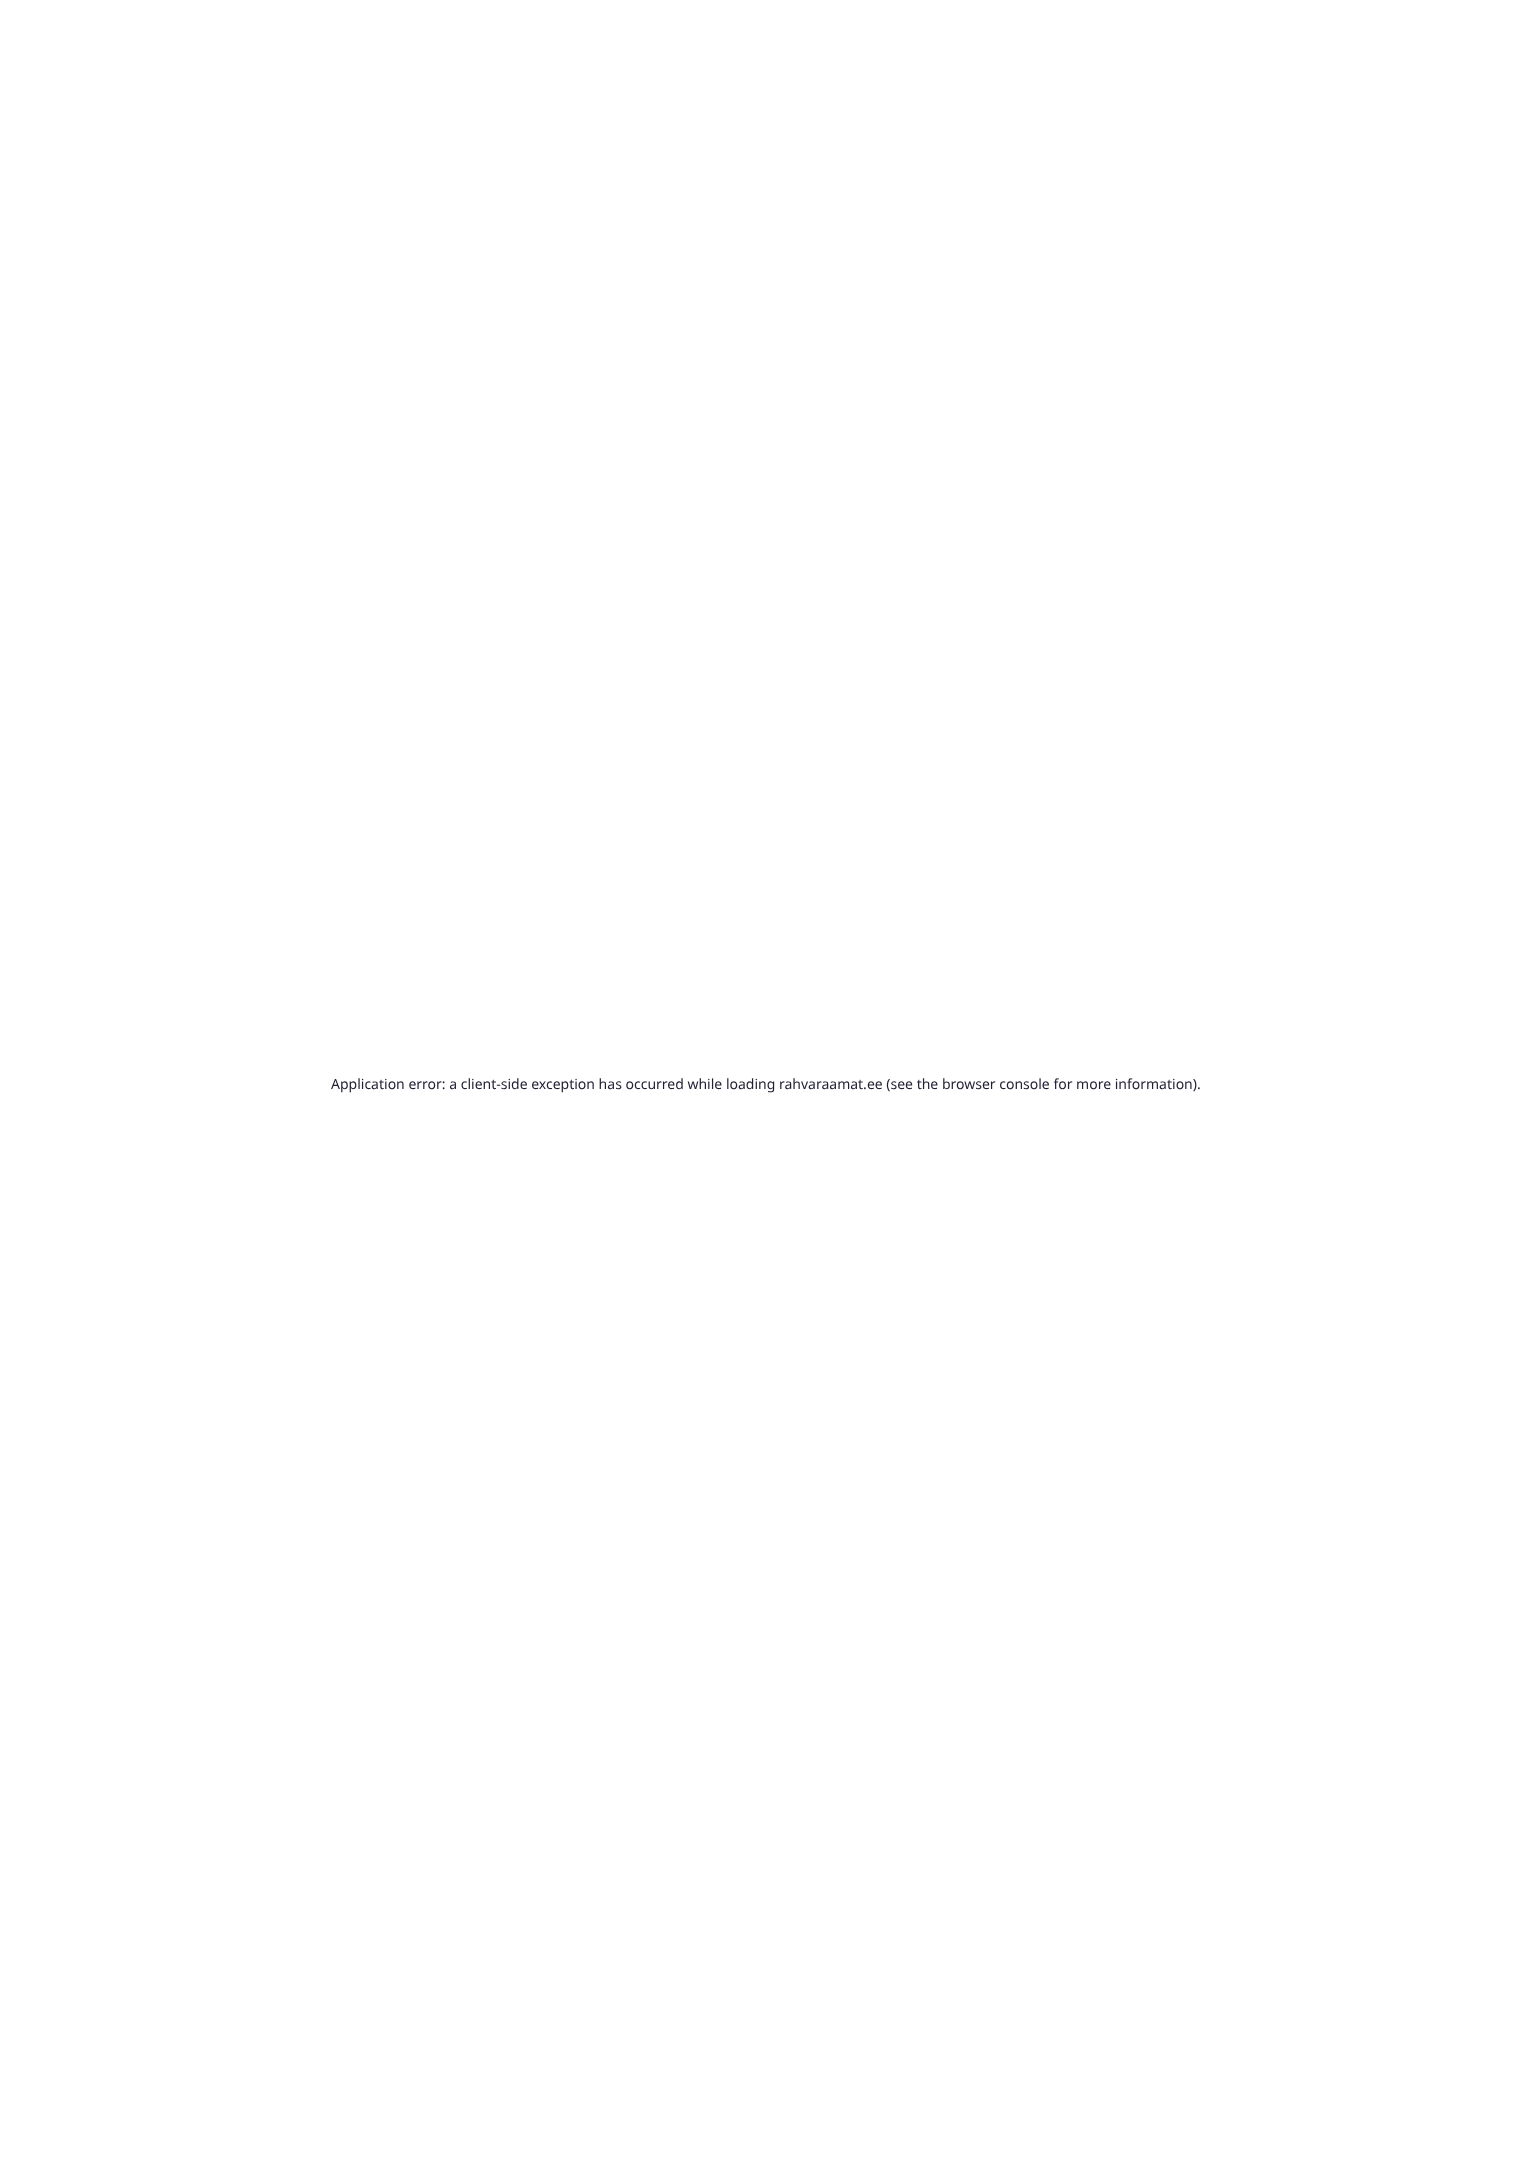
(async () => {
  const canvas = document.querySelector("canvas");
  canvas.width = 1532;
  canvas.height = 2167;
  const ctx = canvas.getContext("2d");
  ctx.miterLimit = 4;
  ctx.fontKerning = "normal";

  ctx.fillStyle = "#ffffff";
  ctx.fillRect(0, 0, 1532, 2167);
  ctx.font = "14px Noto Sans";
  ctx.fillStyle = "#231e33";
  ctx.fillText("Application error: a client-side exception has occurred while loading rahvaraamat.ee (see the browser console for more information).", 331, 1089);
})();
